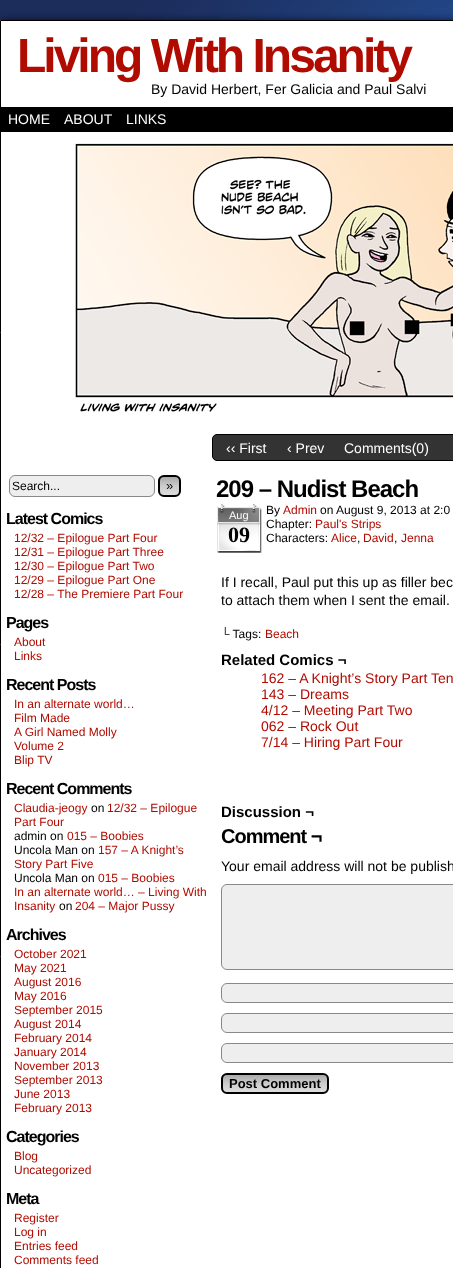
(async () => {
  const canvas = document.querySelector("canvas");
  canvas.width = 453;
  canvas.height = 1268;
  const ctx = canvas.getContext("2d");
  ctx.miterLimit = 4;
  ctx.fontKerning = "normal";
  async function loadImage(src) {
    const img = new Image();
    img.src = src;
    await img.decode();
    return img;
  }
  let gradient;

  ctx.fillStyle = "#ffffff";
  ctx.fillRect(0, 0, 453, 1268);
  ctx.drawImage(await loadImage("img/1.png"), 0, 0, 453, 20);
  ctx.fillStyle = "#000000";
  ctx.filter = "blur(5px)";
  ctx.beginPath();
  ctx.rect(1, 22, 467, 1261);
  ctx.fill();
  ctx.filter = "none";
  ctx.fillStyle = "#ffffff";
  ctx.beginPath();
  ctx.rect(0.5, 20.5, 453, 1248);
  ctx.fill();
  ctx.strokeStyle = "#000000";
  ctx.stroke();
  ctx.fillStyle = "#000000";
  ctx.fillRect(1, 107, 452, 25);
  ctx.drawImage(await loadImage("img/2.png"), 75, 143, 378, 269);
  ctx.fillStyle = "#333333";
  ctx.beginPath();
  ctx.roundRect(212.5, 434.5, 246, 26, 4.5);
  ctx.fill();
  ctx.stroke();
  ctx.fillStyle = "#eeeeee";
  ctx.beginPath();
  ctx.roundRect(9.5, 475.5, 145, 21, 5.5);
  ctx.fill();
  ctx.strokeStyle = "#888888";
  ctx.stroke();
  ctx.save();
  ctx.beginPath();
  ctx.roundRect(158, 475, 23, 22, 6);
  ctx.clip();
  gradient = ctx.createLinearGradient(170, 477, 170, 495);
  gradient.addColorStop(0, "#aaaaaa");
  gradient.addColorStop(0.5, "#cccccc");
  gradient.addColorStop(1, "#dddddd");
  ctx.fillStyle = gradient;
  ctx.fillRect(158, 477, 23, 18);
  ctx.restore();
  ctx.beginPath();
  ctx.roundRect(159, 476, 21, 20, 5);
  ctx.strokeStyle = "#000000";
  ctx.lineWidth = 2;
  ctx.stroke();
  ctx.drawImage(await loadImage("img/3.png"), 217, 504, 45, 49);
  ctx.beginPath();
  ctx.roundRect(221.5, 884.5, 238, 85, 5.5);
  ctx.fill();
  ctx.strokeStyle = "#888888";
  ctx.lineWidth = 1;
  ctx.stroke();
  ctx.beginPath();
  ctx.roundRect(221.5, 983.5, 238, 19, 5.5);
  ctx.fill();
  ctx.stroke();
  ctx.beginPath();
  ctx.roundRect(221.5, 1013.5, 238, 19, 5.5);
  ctx.fill();
  ctx.stroke();
  ctx.beginPath();
  ctx.roundRect(221.5, 1043.5, 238, 19, 5.5);
  ctx.fill();
  ctx.stroke();
  ctx.save();
  ctx.beginPath();
  ctx.roundRect(221, 1073, 108, 21, 6);
  ctx.clip();
  gradient = ctx.createLinearGradient(275, 1075, 275, 1092);
  gradient.addColorStop(0, "#aaaaaa");
  gradient.addColorStop(0.5, "#cccccc");
  gradient.addColorStop(1, "#dddddd");
  ctx.fillStyle = gradient;
  ctx.fillRect(221, 1075, 108, 17);
  ctx.restore();
  ctx.beginPath();
  ctx.roundRect(222, 1074, 106, 19, 5);
  ctx.strokeStyle = "#000000";
  ctx.lineWidth = 2;
  ctx.stroke();
  ctx.letterSpacing = "-3px";
  ctx.font = "bold 48px Liberation Sans";
  ctx.fillStyle = "#b00b00";
  ctx.fillText("Living With Insanity", 17, 72);
  ctx.letterSpacing = "0px";
  ctx.font = "14px Liberation Sans";
  ctx.fillStyle = "#000000";
  ctx.fillText("By David Herbert, Fer Galicia and Paul Salvi", 151, 94);
  ctx.fillStyle = "#ffffff";
  for (const [text, x, y] of [
    ["HOME", 8, 124],
    ["ABOUT", 64, 124],
    ["LINKS", 126, 124],
    ["‹‹ First", 226, 453],
    ["‹ Prev", 287, 453],
    ["Comments(0)", 344, 453],
  ]) {
    ctx.fillText(text, x, y);
  }
  ctx.font = "12px Liberation Sans";
  ctx.fillStyle = "#000000";
  ctx.fillText("Search...", 12, 490);
  ctx.font = "13px Liberation Sans";
  ctx.fillText("»", 166, 490);
  ctx.letterSpacing = "-1px";
  ctx.font = "bold 16px Liberation Sans";
  ctx.fillText("Latest Comics", 6, 524);
  ctx.letterSpacing = "0px";
  ctx.font = "12px Liberation Sans";
  ctx.fillStyle = "#b00b00";
  for (const [text, x, y] of [
    ["12/32 – Epilogue Part Four", 14, 542],
    ["12/31 – Epilogue Part Three", 14, 556],
    ["12/30 – Epilogue Part Two", 14, 570],
    ["12/29 – Epilogue Part One", 14, 584],
    ["12/28 – The Premiere Part Four", 14, 598],
  ]) {
    ctx.fillText(text, x, y);
  }
  ctx.letterSpacing = "-1px";
  ctx.font = "bold 16px Liberation Sans";
  ctx.fillStyle = "#000000";
  ctx.fillText("Pages", 6, 628);
  ctx.letterSpacing = "0px";
  ctx.font = "12px Liberation Sans";
  ctx.fillStyle = "#b00b00";
  ctx.fillText("About", 14, 646);
  ctx.fillText("Links", 14, 660);
  ctx.letterSpacing = "-1px";
  ctx.font = "bold 16px Liberation Sans";
  ctx.fillStyle = "#000000";
  ctx.fillText("Recent Posts", 6, 690);
  ctx.letterSpacing = "0px";
  ctx.font = "12px Liberation Sans";
  ctx.fillStyle = "#b00b00";
  for (const [text, x, y] of [
    ["In an alternate world…", 14, 708],
    ["Film Made", 14, 722],
    ["A Girl Named Molly", 14, 736],
    ["Volume 2", 14, 750],
    ["Blip TV", 14, 764],
  ]) {
    ctx.fillText(text, x, y);
  }
  ctx.letterSpacing = "-1px";
  ctx.font = "bold 16px Liberation Sans";
  ctx.fillStyle = "#000000";
  ctx.fillText("Recent Comments", 6, 794);
  ctx.letterSpacing = "0px";
  ctx.font = "12px Liberation Sans";
  ctx.fillStyle = "#b00b00";
  ctx.fillText("Claudia-jeogy", 14, 812);
  ctx.fillStyle = "#000000";
  ctx.fillText("on", 91, 812);
  ctx.fillStyle = "#b00b00";
  ctx.fillText("12/32 – Epilogue", 107, 812);
  ctx.fillText("Part Four", 14, 826);
  ctx.fillStyle = "#000000";
  ctx.fillText("admin on", 14, 840);
  ctx.fillStyle = "#b00b00";
  ctx.fillText("015 – Boobies", 67, 840);
  ctx.fillStyle = "#000000";
  ctx.fillText("Uncola Man on", 14, 854);
  ctx.fillStyle = "#b00b00";
  ctx.fillText("157 – A Knight’s", 98, 854);
  ctx.fillText("Story Part Five", 14, 868);
  ctx.fillStyle = "#000000";
  ctx.fillText("Uncola Man on", 14, 882);
  ctx.fillStyle = "#b00b00";
  for (const [text, x, y] of [
    ["015 – Boobies", 98, 882],
    ["In an alternate world… – Living With", 14, 896],
    ["Insanity", 14, 910],
  ]) {
    ctx.fillText(text, x, y);
  }
  ctx.fillStyle = "#000000";
  ctx.fillText("on", 59, 910);
  ctx.fillStyle = "#b00b00";
  ctx.fillText("204 – Major Pussy", 75, 910);
  ctx.letterSpacing = "-1px";
  ctx.font = "bold 16px Liberation Sans";
  ctx.fillStyle = "#000000";
  ctx.fillText("Archives", 6, 940);
  ctx.letterSpacing = "0px";
  ctx.font = "12px Liberation Sans";
  ctx.fillStyle = "#b00b00";
  for (const [text, x, y] of [
    ["October 2021", 14, 958],
    ["May 2021", 14, 972],
    ["August 2016", 14, 986],
    ["May 2016", 14, 1000],
    ["September 2015", 14, 1014],
    ["August 2014", 14, 1028],
    ["February 2014", 14, 1042],
    ["January 2014", 14, 1056],
    ["November 2013", 14, 1070],
    ["September 2013", 14, 1084],
    ["June 2013", 14, 1098],
    ["February 2013", 14, 1112],
  ]) {
    ctx.fillText(text, x, y);
  }
  ctx.letterSpacing = "-1px";
  ctx.font = "bold 16px Liberation Sans";
  ctx.fillStyle = "#000000";
  ctx.fillText("Categories", 6, 1142);
  ctx.letterSpacing = "0px";
  ctx.font = "12px Liberation Sans";
  ctx.fillStyle = "#b00b00";
  ctx.fillText("Blog", 14, 1160);
  ctx.fillText("Uncategorized", 14, 1174);
  ctx.letterSpacing = "-1px";
  ctx.font = "bold 16px Liberation Sans";
  ctx.fillStyle = "#000000";
  ctx.fillText("Meta", 6, 1204);
  ctx.letterSpacing = "0px";
  ctx.font = "12px Liberation Sans";
  ctx.fillStyle = "#b00b00";
  for (const [text, x, y] of [
    ["Register", 14, 1222],
    ["Log in", 14, 1236],
    ["Entries feed", 14, 1250],
    ["Comments feed", 14, 1264],
  ]) {
    ctx.fillText(text, x, y);
  }
  ctx.letterSpacing = "-1px";
  ctx.font = "bold 24px Liberation Sans";
  ctx.fillStyle = "#000000";
  ctx.fillText("209 – Nudist Beach", 216, 497);
  ctx.letterSpacing = "0px";
  ctx.font = "11px Liberation Sans";
  ctx.fillStyle = "#ffffff";
  ctx.fillText("Aug", 229, 519);
  ctx.font = "bold 22px Liberation Serif";
  ctx.fillStyle = "#000000";
  ctx.fillText("09", 228, 542);
  ctx.font = "12px Liberation Sans";
  ctx.fillText("By", 266, 514);
  ctx.fillStyle = "#b00b00";
  ctx.fillText("Admin", 283, 514);
  ctx.fillStyle = "#000000";
  ctx.fillText("on August 9, 2013 at 2:0", 320, 514);
  ctx.fillText("Chapter:", 266, 528);
  ctx.fillStyle = "#b00b00";
  ctx.fillText("Paul's Strips", 315, 528);
  ctx.fillStyle = "#000000";
  ctx.fillText("Characters:", 266, 542);
  ctx.fillStyle = "#b00b00";
  ctx.fillText("Alice", 331, 542);
  ctx.fillStyle = "#000000";
  ctx.fillText(",", 357, 542);
  ctx.fillStyle = "#b00b00";
  ctx.fillText("David", 363, 542);
  ctx.fillStyle = "#000000";
  ctx.fillText(",", 394, 542);
  ctx.fillStyle = "#b00b00";
  ctx.fillText("Jenna", 401, 542);
  ctx.font = "14px Liberation Sans";
  ctx.fillStyle = "#000000";
  ctx.fillText("If I recall, Paul put this up as filler bec", 221, 587);
  ctx.fillText("to attach them when I sent the email.", 221, 605);
  ctx.font = "12px Liberation Sans";
  ctx.fillText("└ Tags:", 221, 638);
  ctx.fillStyle = "#b00b00";
  ctx.fillText("Beach", 265, 638);
  ctx.font = "bold 15px Liberation Sans";
  ctx.fillStyle = "#000000";
  ctx.fillText("Related Comics ¬", 221, 665);
  ctx.font = "14px Liberation Sans";
  ctx.fillStyle = "#b00b00";
  for (const [text, x, y] of [
    ["162 – A Knight’s Story Part Ten", 261, 683],
    ["143 – Dreams", 261, 699],
    ["4/12 – Meeting Part Two", 261, 715],
    ["062 – Rock Out", 261, 731],
    ["7/14 – Hiring Part Four", 261, 747],
  ]) {
    ctx.fillText(text, x, y);
  }
  ctx.font = "bold 15px Liberation Sans";
  ctx.fillStyle = "#000000";
  ctx.fillText("Discussion ¬", 221, 817);
  ctx.letterSpacing = "-1px";
  ctx.font = "bold 20px Liberation Sans";
  ctx.fillText("Comment ¬", 221, 843);
  ctx.letterSpacing = "0px";
  ctx.font = "14px Liberation Sans";
  ctx.fillText("Your email address will not be publish", 221, 871);
  ctx.font = "bold 13px Liberation Sans";
  ctx.fillText("Post Comment", 229, 1088);
})();
